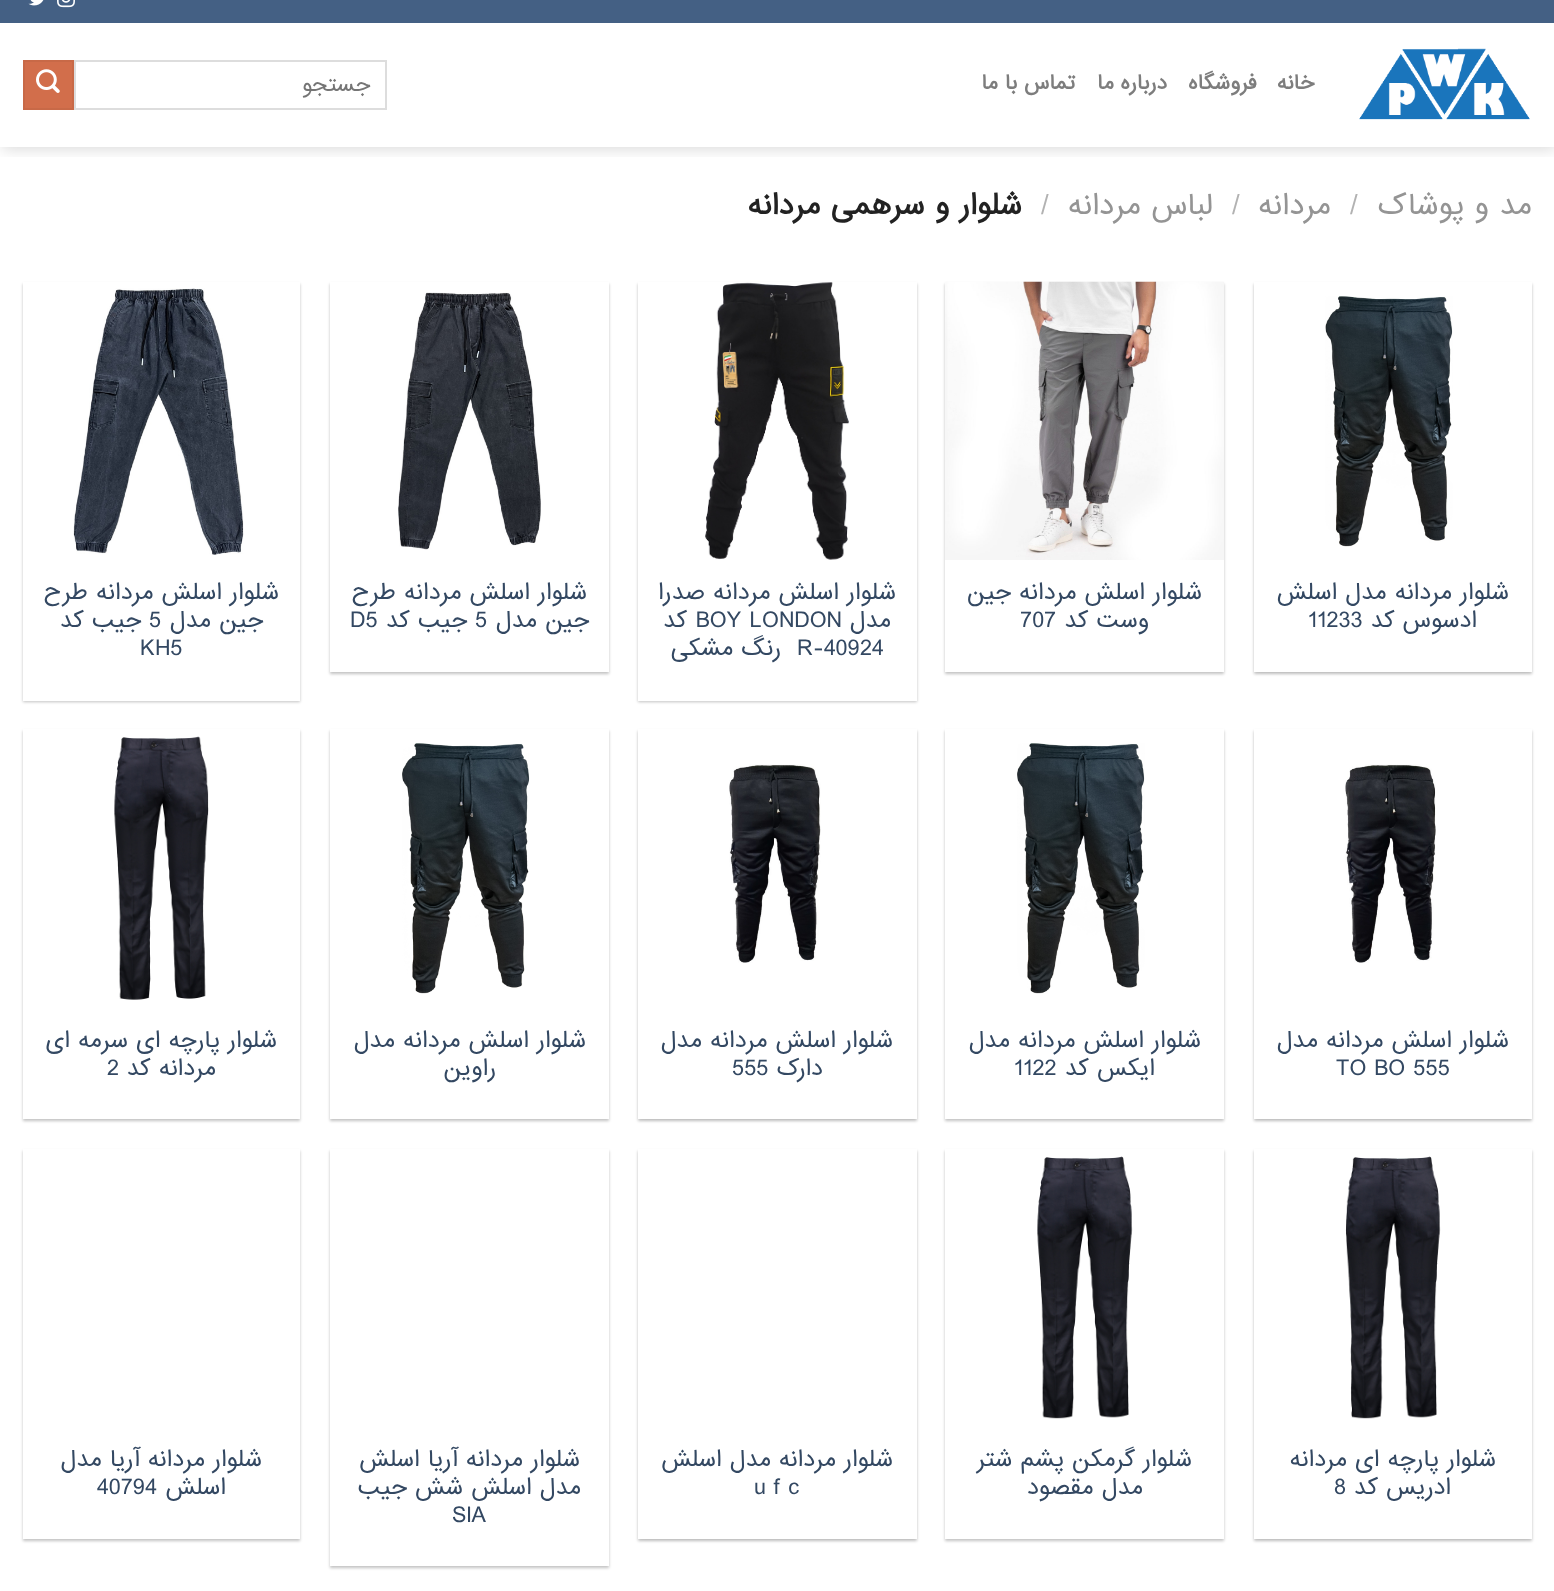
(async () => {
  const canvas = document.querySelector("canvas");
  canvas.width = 1554;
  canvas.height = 1591;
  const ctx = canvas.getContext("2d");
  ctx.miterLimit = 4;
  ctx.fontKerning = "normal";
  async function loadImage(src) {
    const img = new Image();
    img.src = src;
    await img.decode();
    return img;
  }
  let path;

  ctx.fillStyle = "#ffffff";
  ctx.fillRect(0, 0, 1554, 1591);
  ctx.save();
  ctx.beginPath();
  ctx.rect(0, 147, 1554, 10);
  ctx.clip();
  ctx.fillStyle = "rgba(0, 0, 0, 0.15)";
  ctx.filter = "blur(7.5px)";
  ctx.beginPath();
  ctx.rect(2, -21, 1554, 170);
  ctx.fill();
  ctx.filter = "none";
  ctx.restore();
  ctx.fillStyle = "#446084";
  ctx.fillRect(0, 0, 1554, 23);
  ctx.drawImage(await loadImage("img/1.png"), 57, 0, 18, 8);
  ctx.drawImage(await loadImage("img/2.png"), 28, 0, 16, 6);
  ctx.drawImage(await loadImage("img/3.png"), 1359, 48, 171, 72);
  ctx.strokeStyle = "#dddddd";
  ctx.lineWidth = 2;
  ctx.strokeRect(75, 61, 311, 48);
  ctx.fillStyle = "#d26e4b";
  ctx.beginPath();
  ctx.rect(24, 61, 49, 48);
  ctx.fill();
  ctx.strokeStyle = "#c86947";
  ctx.stroke();
  ctx.drawImage(await loadImage("img/4.png"), 36, 69, 24, 24);
  ctx.fillStyle = "rgba(0, 0, 0, 0.24)";
  ctx.filter = "blur(1.5px)";
  ctx.beginPath();
  ctx.rect(1254, 284, 278, 390);
  ctx.fill();
  ctx.filter = "none";
  ctx.fillStyle = "rgba(0, 0, 0, 0.12)";
  ctx.filter = "blur(2px)";
  ctx.beginPath();
  ctx.rect(1257, 287, 272, 384);
  ctx.fill();
  ctx.filter = "none";
  ctx.fillStyle = "#ffffff";
  ctx.fillRect(1254, 282, 278, 390);
  ctx.drawImage(await loadImage("img/5.png"), 1325, 296, 128, 251);
  ctx.save();
  path = new Path2D("M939 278H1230V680H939ZM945 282H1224V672H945Z");
  ctx.clip(path, "evenodd");
  ctx.fillStyle = "rgba(0, 0, 0, 0.24)";
  ctx.filter = "blur(1.5px)";
  ctx.beginPath();
  ctx.rect(945, 284, 279, 390);
  ctx.fill();
  ctx.filter = "none";
  ctx.restore();
  ctx.drawImage(await loadImage("img/6.png"), 945, 281, 279, 279);
  ctx.fillStyle = "rgba(0, 0, 0, 0.24)";
  ctx.filter = "blur(1.5px)";
  ctx.beginPath();
  ctx.rect(638, 284, 279, 418);
  ctx.fill();
  ctx.filter = "none";
  ctx.fillStyle = "#ffffff";
  ctx.fillRect(638, 282, 279, 419);
  ctx.drawImage(await loadImage("img/7.png"), 705, 282, 144, 278);
  ctx.save();
  path = new Path2D("M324 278H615V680H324ZM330 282H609V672H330Z");
  ctx.clip(path, "evenodd");
  ctx.fillStyle = "rgba(0, 0, 0, 0.24)";
  ctx.filter = "blur(1.5px)";
  ctx.beginPath();
  ctx.rect(330, 284, 279, 390);
  ctx.fill();
  ctx.filter = "none";
  ctx.restore();
  ctx.drawImage(await loadImage("img/8.png"), 398, 292, 143, 258);
  ctx.fillStyle = "rgba(0, 0, 0, 0.24)";
  ctx.filter = "blur(1.5px)";
  ctx.beginPath();
  ctx.rect(23, 284, 277, 418);
  ctx.fill();
  ctx.filter = "none";
  ctx.fillStyle = "#ffffff";
  ctx.fillRect(23, 282, 277, 419);
  ctx.drawImage(await loadImage("img/9.png"), 73, 288, 171, 267);
  ctx.fillStyle = "rgba(0, 0, 0, 0.24)";
  ctx.filter = "blur(1.5px)";
  ctx.beginPath();
  ctx.rect(1254, 731, 278, 390);
  ctx.fill();
  ctx.filter = "none";
  ctx.fillStyle = "rgba(0, 0, 0, 0.12)";
  ctx.filter = "blur(2px)";
  ctx.beginPath();
  ctx.rect(1257, 734, 272, 384);
  ctx.fill();
  ctx.filter = "none";
  ctx.fillStyle = "#ffffff";
  ctx.fillRect(1254, 729, 278, 390);
  ctx.drawImage(await loadImage("img/10.png"), 1345, 764, 91, 199);
  ctx.save();
  path = new Path2D("M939 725H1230V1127H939ZM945 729H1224V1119H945Z");
  ctx.clip(path, "evenodd");
  ctx.fillStyle = "rgba(0, 0, 0, 0.24)";
  ctx.filter = "blur(1.5px)";
  ctx.beginPath();
  ctx.rect(945, 731, 279, 390);
  ctx.fill();
  ctx.filter = "none";
  ctx.restore();
  ctx.drawImage(await loadImage("img/11.png"), 1017, 743, 128, 251);
  ctx.fillStyle = "rgba(0, 0, 0, 0.24)";
  ctx.filter = "blur(1.5px)";
  ctx.beginPath();
  ctx.rect(638, 731, 279, 390);
  ctx.fill();
  ctx.filter = "none";
  ctx.fillStyle = "rgba(0, 0, 0, 0.12)";
  ctx.filter = "blur(2px)";
  ctx.beginPath();
  ctx.rect(641, 734, 273, 384);
  ctx.fill();
  ctx.filter = "none";
  ctx.fillStyle = "#ffffff";
  ctx.fillRect(638, 729, 279, 390);
  ctx.drawImage(await loadImage("img/12.png"), 729, 764, 92, 199);
  ctx.save();
  path = new Path2D("M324 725H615V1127H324ZM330 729H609V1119H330Z");
  ctx.clip(path, "evenodd");
  ctx.fillStyle = "rgba(0, 0, 0, 0.24)";
  ctx.filter = "blur(1.5px)";
  ctx.beginPath();
  ctx.rect(330, 731, 279, 390);
  ctx.fill();
  ctx.filter = "none";
  ctx.restore();
  ctx.drawImage(await loadImage("img/13.png"), 402, 743, 128, 251);
  ctx.save();
  path = new Path2D("M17 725H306V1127H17ZM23 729H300V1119H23Z");
  ctx.clip(path, "evenodd");
  ctx.fillStyle = "rgba(0, 0, 0, 0.24)";
  ctx.filter = "blur(1.5px)";
  ctx.beginPath();
  ctx.rect(23, 731, 277, 390);
  ctx.fill();
  ctx.filter = "none";
  ctx.restore();
  ctx.drawImage(await loadImage("img/14.png"), 114, 736, 95, 264);
  ctx.fillStyle = "rgba(0, 0, 0, 0.24)";
  ctx.filter = "blur(1.5px)";
  ctx.beginPath();
  ctx.rect(1254, 1151, 278, 390);
  ctx.fill();
  ctx.filter = "none";
  ctx.fillStyle = "rgba(0, 0, 0, 0.12)";
  ctx.filter = "blur(2px)";
  ctx.beginPath();
  ctx.rect(1257, 1154, 272, 384);
  ctx.fill();
  ctx.filter = "none";
  ctx.fillStyle = "#ffffff";
  ctx.fillRect(1254, 1149, 278, 390);
  ctx.drawImage(await loadImage("img/15.png"), 1345, 1156, 96, 263);
  ctx.save();
  path = new Path2D("M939 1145H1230V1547H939ZM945 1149H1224V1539H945Z");
  ctx.clip(path, "evenodd");
  ctx.fillStyle = "rgba(0, 0, 0, 0.24)";
  ctx.filter = "blur(1.5px)";
  ctx.beginPath();
  ctx.rect(945, 1151, 279, 390);
  ctx.fill();
  ctx.filter = "none";
  ctx.restore();
  ctx.drawImage(await loadImage("img/16.png"), 1037, 1156, 96, 263);
  ctx.fillStyle = "rgba(0, 0, 0, 0.24)";
  ctx.filter = "blur(1.5px)";
  ctx.beginPath();
  ctx.rect(638, 1151, 279, 390);
  ctx.fill();
  ctx.filter = "none";
  ctx.fillStyle = "rgba(0, 0, 0, 0.12)";
  ctx.filter = "blur(2px)";
  ctx.beginPath();
  ctx.rect(641, 1154, 273, 384);
  ctx.fill();
  ctx.filter = "none";
  ctx.fillStyle = "#ffffff";
  ctx.fillRect(638, 1149, 279, 390);
  ctx.save();
  path = new Path2D("M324 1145H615V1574H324ZM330 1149H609V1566H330Z");
  ctx.clip(path, "evenodd");
  ctx.fillStyle = "rgba(0, 0, 0, 0.24)";
  ctx.filter = "blur(1.5px)";
  ctx.beginPath();
  ctx.rect(330, 1151, 279, 417);
  ctx.fill();
  ctx.filter = "none";
  ctx.restore();
  ctx.save();
  path = new Path2D("M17 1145H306V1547H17ZM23 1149H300V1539H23Z");
  ctx.clip(path, "evenodd");
  ctx.fillStyle = "rgba(0, 0, 0, 0.24)";
  ctx.filter = "blur(1.5px)";
  ctx.beginPath();
  ctx.rect(23, 1151, 277, 390);
  ctx.fill();
  ctx.filter = "none";
  ctx.restore();
  ctx.letterSpacing = "0.4px";
  ctx.direction = "rtl";
  ctx.font = "bold 19.25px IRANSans";
  ctx.fillStyle = "#7d7d7d";
  ctx.fillText("خانه", 1314, 89);
  ctx.fillText("فروشگاه", 1257, 89);
  ctx.wordSpacing = "-1px";
  ctx.fillText("درباره ما", 1167, 89);
  ctx.fillText("تماس با ما", 1075, 89);
  ctx.letterSpacing = "0px";
  ctx.wordSpacing = "0px";
  ctx.font = "20px IRANSans";
  ctx.fillStyle = "#757575";
  ctx.fillText("جستجو", 370, 91);
  ctx.font = "27.5px IRANSans";
  ctx.fillStyle = "#949494";
  ctx.fillText("مد و پوشاک", 1532, 214);
  ctx.direction = "ltr";
  ctx.fillStyle = "#b2b2b2";
  ctx.fillText("/", 1350, 214);
  ctx.direction = "rtl";
  ctx.fillStyle = "#949494";
  ctx.fillText("مردانه", 1331, 214);
  ctx.direction = "ltr";
  ctx.fillStyle = "#b2b2b2";
  ctx.fillText("/", 1232, 214);
  ctx.direction = "rtl";
  ctx.fillStyle = "#949494";
  ctx.fillText("لباس مردانه", 1213, 214);
  ctx.direction = "ltr";
  ctx.fillStyle = "#b2b2b2";
  ctx.fillText("/", 1041, 214);
  ctx.direction = "rtl";
  ctx.font = "bold 27.5px IRANSans";
  ctx.fillStyle = "#222222";
  ctx.fillText("شلوار و سرهمی مردانه", 1022, 214);
  ctx.font = "21.6px IRANSans";
  ctx.fillStyle = "#334862";
  for (const [text, x, y] of [
    ["شلوار", 1509, 599],
    ["مردانه مدل اسلش", 1452, 599],
    ["ادسوس کد", 1477, 627],
  ]) {
    ctx.fillText(text, x, y);
  }
  ctx.direction = "ltr";
  ctx.fillText("11233", 1308, 627);
  ctx.direction = "rtl";
  ctx.fillText("شلوار اسلش مردانه جین", 1202, 599);
  ctx.fillText("وست کد", 1149, 627);
  ctx.direction = "ltr";
  ctx.fillText("707", 1020, 627);
  ctx.direction = "rtl";
  ctx.fillText("شلوار اسلش مردانه صدرا", 896, 599);
  ctx.fillText("مدل", 891, 627);
  ctx.direction = "ltr";
  ctx.fillText("BOY LONDON", 696, 627);
  ctx.direction = "rtl";
  ctx.fillText("کد", 687, 627);
  ctx.direction = "ltr";
  ctx.fillText("R-40924", 797, 655);
  ctx.direction = "rtl";
  for (const [text, x, y] of [
    ["رنگ مشکی", 781, 655],
    ["شلوار اسلش مردانه طرح", 587, 599],
    ["جین مدل", 589, 627],
  ]) {
    ctx.fillText(text, x, y);
  }
  ctx.direction = "ltr";
  ctx.fillText("5", 475, 627);
  ctx.direction = "rtl";
  ctx.fillText("جیب کد", 467, 627);
  ctx.direction = "ltr";
  ctx.fillText("D5", 350, 627);
  ctx.direction = "rtl";
  ctx.fillText("شلوار اسلش مردانه طرح", 279, 599);
  ctx.fillText("جین مدل", 263, 627);
  ctx.direction = "ltr";
  ctx.fillText("5", 149, 627);
  ctx.direction = "rtl";
  ctx.fillText("جیب کد", 141, 627);
  ctx.direction = "ltr";
  ctx.fillText("KH5", 140, 655);
  ctx.direction = "rtl";
  ctx.fillText("شلوار اسلش مردانه مدل", 1509, 1047);
  ctx.direction = "ltr";
  ctx.fillText("TO BO 555", 1336, 1075);
  ctx.direction = "rtl";
  ctx.fillText("شلوار اسلش مردانه مدل", 1201, 1047);
  ctx.fillText("ایکس کد", 1155, 1075);
  ctx.direction = "ltr";
  ctx.fillText("1122", 1014, 1075);
  ctx.direction = "rtl";
  ctx.fillText("شلوار اسلش مردانه مدل", 893, 1047);
  ctx.fillText("دارک", 823, 1075);
  ctx.direction = "ltr";
  ctx.fillText("555", 732, 1075);
  ctx.direction = "rtl";
  for (const [text, x, y] of [
    ["شلوار اسلش مردانه مدل", 586, 1047],
    ["راوین", 496, 1075],
    ["شلوار پارچه ای سرمه ای", 277, 1047],
    ["مردانه کد", 216, 1075],
  ]) {
    ctx.fillText(text, x, y);
  }
  ctx.direction = "ltr";
  ctx.fillText("2", 107, 1075);
  ctx.direction = "rtl";
  ctx.fillText("شلوار پارچه ای مردانه", 1496, 1466);
  ctx.fillText("ادریس کد", 1451, 1494);
  ctx.direction = "ltr";
  ctx.fillText("8", 1334, 1494);
  ctx.direction = "rtl";
  for (const [text, x, y] of [
    ["شلوار گرمکن پشم شتر", 1192, 1466],
    ["مدل مقصود", 1143, 1494],
    ["شلوار مردانه", 893, 1466],
    ["مدل اسلش", 771, 1466],
  ]) {
    ctx.fillText(text, x, y);
  }
  ctx.direction = "ltr";
  ctx.fillText("u f c", 754, 1494);
  ctx.direction = "rtl";
  ctx.fillText("شلوار مردانه آریا اسلش", 580, 1466);
  ctx.fillText("مدل اسلش شش جیب", 581, 1494);
  ctx.direction = "ltr";
  ctx.fillText("SIA", 452, 1522);
  ctx.direction = "rtl";
  ctx.fillText("شلوار مردانه آریا مدل", 262, 1466);
  ctx.fillText("اسلش", 226, 1494);
  ctx.direction = "ltr";
  ctx.fillText("40794", 97, 1494);
})();
